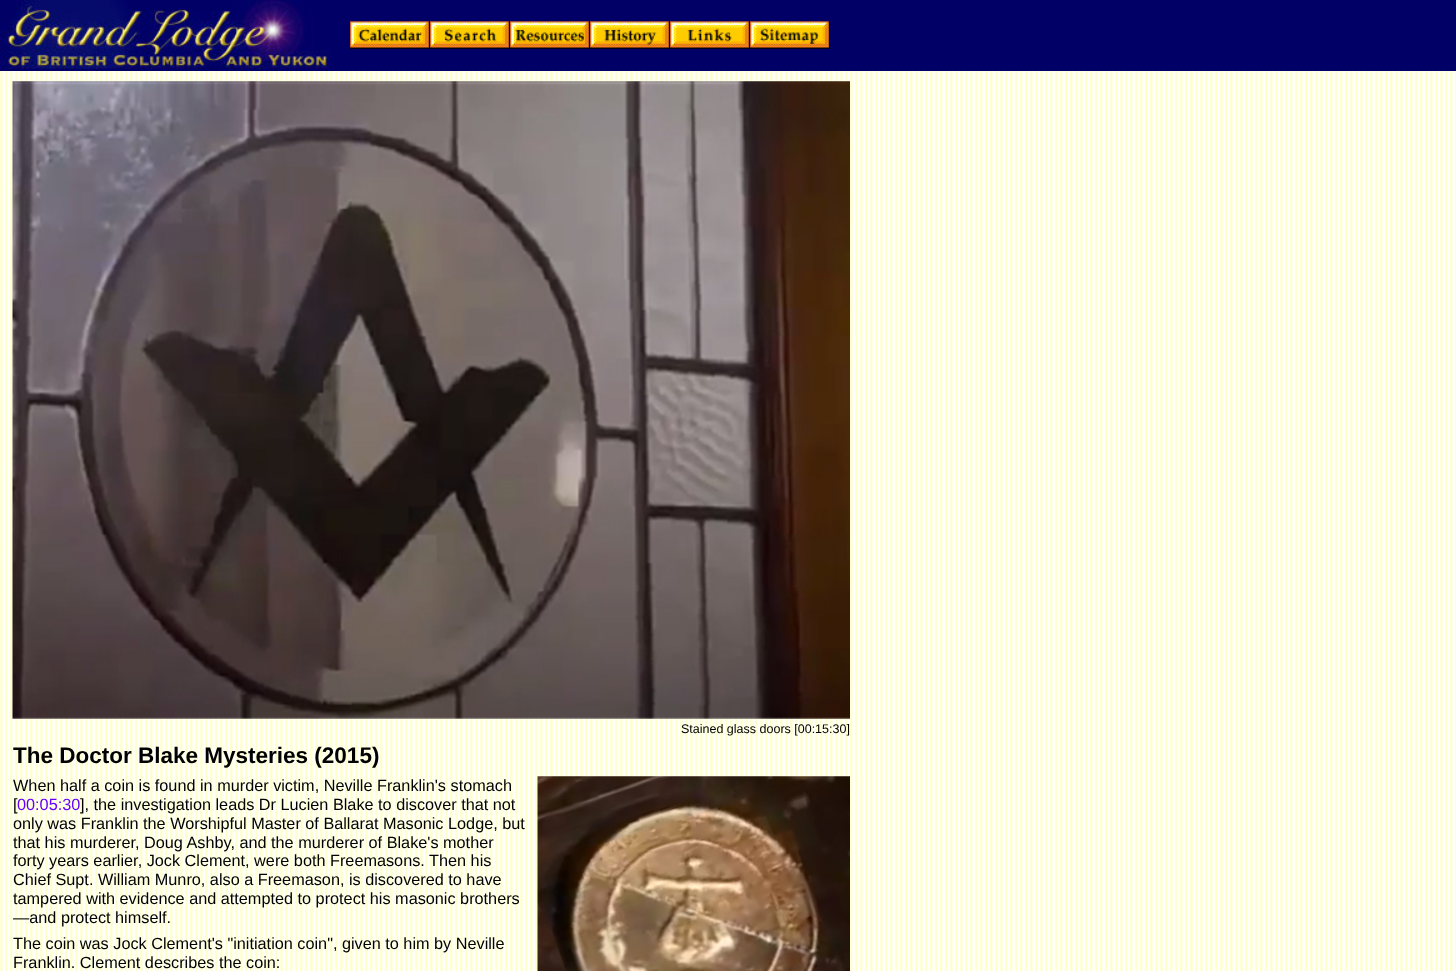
(async () => {
  const canvas = document.querySelector("canvas");
  canvas.width = 1456;
  canvas.height = 971;
  const ctx = canvas.getContext("2d");
  ctx.miterLimit = 4;
  ctx.fontKerning = "normal";
  async function loadImage(src) {
    const img = new Image();
    img.src = src;
    await img.decode();
    return img;
  }

  ctx.fillStyle = "#ffffff";
  ctx.fillRect(0, 0, 1456, 971);
  ctx.drawImage(await loadImage("img/1.png"), 0, 71, 1456, 900);
  ctx.fillStyle = "#000066";
  ctx.fillRect(0, 0, 1456, 71);
  ctx.drawImage(await loadImage("img/2.png"), 0, 0, 330, 69);
  ctx.drawImage(await loadImage("img/3.png"), 350, 21, 80, 28);
  ctx.drawImage(await loadImage("img/4.png"), 430, 21, 80, 28);
  ctx.drawImage(await loadImage("img/5.png"), 510, 21, 80, 28);
  ctx.drawImage(await loadImage("img/6.png"), 590, 21, 80, 28);
  ctx.drawImage(await loadImage("img/7.png"), 670, 21, 80, 28);
  ctx.drawImage(await loadImage("img/8.png"), 750, 21, 80, 28);
  ctx.drawImage(await loadImage("img/9.png"), 12, 81, 838, 638);
  ctx.drawImage(await loadImage("img/10.png"), 537, 776, 313, 195);
  ctx.font = "12.5px Liberation Sans";
  ctx.fillStyle = "#000000";
  ctx.fillText("Stained glass doors [00:15:30]", 681, 733);
  ctx.font = "bold 22.5px Liberation Sans";
  ctx.fillText("The Doctor Blake Mysteries (2015)", 13, 763);
  ctx.font = "16.25px Liberation Sans";
  ctx.fillText("When half a coin is found in murder victim, Neville Franklin's stomach", 13, 791);
  ctx.fillText("[", 13, 810);
  ctx.fillStyle = "#6600ff";
  ctx.fillText("00:05:30", 17, 810);
  ctx.fillStyle = "#000000";
  for (const [text, x, y] of [
    ["], the investigation leads Dr Lucien Blake to discover that not", 80, 810],
    ["only was Franklin the Worshipful Master of Ballarat Masonic Lodge, but", 13, 829],
    ["that his murderer, Doug Ashby, and the murderer of Blake's mother", 13, 848],
    ["forty years earlier, Jock Clement, were both Freemasons. Then his", 13, 866],
    ["Chief Supt. William Munro, also a Freemason, is discovered to have", 13, 885],
    ["tampered with evidence and attempted to protect his masonic brothers", 13, 904],
    ["—and protect himself.", 13, 923],
    ["The coin was Jock Clement's \"initiation coin\", given to him by Neville", 13, 949],
    ["Franklin. Clement describes the coin:", 13, 968],
  ]) {
    ctx.fillText(text, x, y);
  }
})();
